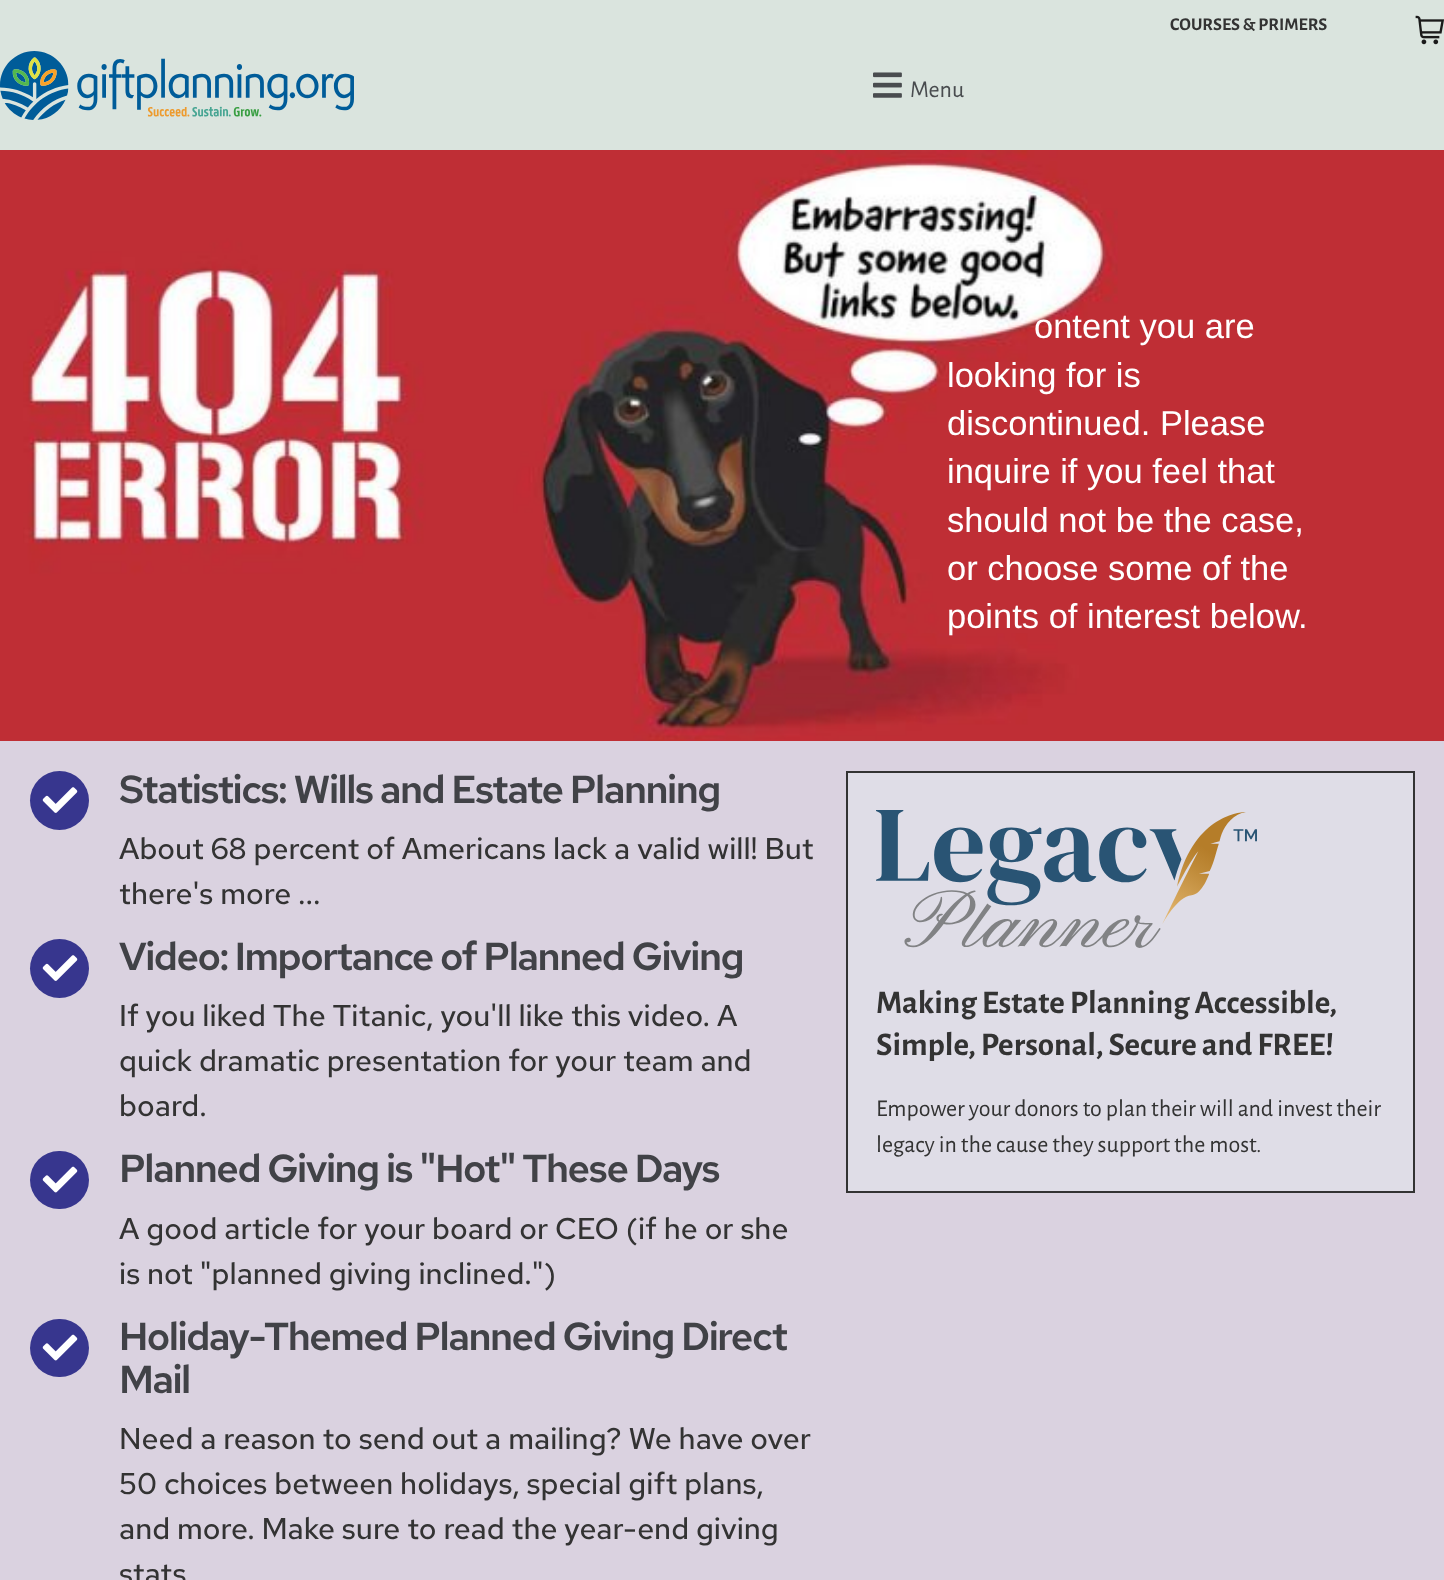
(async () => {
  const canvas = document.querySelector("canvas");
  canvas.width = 1444;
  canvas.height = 1580;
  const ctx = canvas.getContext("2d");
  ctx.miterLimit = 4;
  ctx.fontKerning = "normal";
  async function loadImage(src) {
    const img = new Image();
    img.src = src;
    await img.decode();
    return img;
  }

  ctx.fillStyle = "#bf2e35";
  ctx.fillRect(0, 0, 1444, 1580);
  ctx.fillStyle = "#dae4de";
  ctx.fillRect(0, 0, 1444, 150);
  ctx.drawImage(await loadImage("img/1.png"), 1415, 15, 29, 30);
  ctx.drawImage(await loadImage("img/2.png"), 0, 51, 354, 69);
  ctx.drawImage(await loadImage("img/3.png"), 873, 72, 29, 26);
  ctx.drawImage(await loadImage("img/4.png"), 23, 150, 1095, 591);
  ctx.fillStyle = "#dad2e0";
  ctx.fillRect(0, 741, 1444, 839);
  ctx.fillStyle = "#37368e";
  ctx.beginPath();
  ctx.arc(59.5, 800.5, 29.5, 0, Math.PI * 2);
  ctx.fill();
  ctx.drawImage(await loadImage("img/5.png"), 42, 787, 36, 26);
  ctx.beginPath();
  ctx.arc(59.5, 968.5, 29.5, 0, Math.PI * 2);
  ctx.fill();
  ctx.drawImage(await loadImage("img/5.png"), 42, 955, 36, 26);
  ctx.beginPath();
  ctx.roundRect(30, 1151, 59, 58, 29);
  ctx.fill();
  ctx.drawImage(await loadImage("img/6.png"), 42, 1166, 36, 27);
  ctx.beginPath();
  ctx.roundRect(30, 1319, 59, 58, 29);
  ctx.fill();
  ctx.drawImage(await loadImage("img/6.png"), 42, 1334, 36, 27);
  ctx.fillStyle = "#dfdde7";
  ctx.beginPath();
  ctx.rect(847, 772, 567, 420);
  ctx.fill();
  ctx.strokeStyle = "#333333";
  ctx.lineWidth = 2;
  ctx.stroke();
  ctx.drawImage(await loadImage("img/7.png"), 876, 810, 381, 138);
  ctx.font = "bold 18px Alegreya Sans";
  ctx.fillStyle = "#333333";
  ctx.fillText("COURSES & PRIMERS", 1170, 30);
  ctx.font = "24px Alegreya Sans";
  ctx.fillStyle = "#494c4f";
  ctx.fillText("Menu", 910, 97);
  ctx.font = "34.5px Liberation Sans";
  ctx.fillStyle = "#ffffff";
  for (const [text, x, y] of [
    ["ontent you are", 1034, 338],
    ["looking for is", 947, 387],
    ["discontinued. Please", 947, 435],
    ["inquire if you feel that", 947, 483],
    ["should not be the case,", 947, 532],
    ["or choose some of the", 947, 580],
    ["points of interest below.", 947, 628],
  ]) {
    ctx.fillText(text, x, y);
  }
  ctx.letterSpacing = "-1.5px";
  ctx.font = "600 39px Red Hat Text";
  ctx.fillStyle = "#414247";
  ctx.fillText("Statistics: Wills and Estate Planning", 119, 803);
  ctx.letterSpacing = "0px";
  ctx.font = "500 30px Red Hat Text";
  ctx.fillStyle = "#333333";
  ctx.fillText("About 68 percent of Americans lack a valid will! But", 119, 859);
  ctx.fillText("there's more ...", 119, 904);
  ctx.letterSpacing = "-1.5px";
  ctx.font = "600 39px Red Hat Text";
  ctx.fillStyle = "#414247";
  ctx.fillText("Video: Importance of Planned Giving", 119, 970);
  ctx.letterSpacing = "0px";
  ctx.font = "500 30px Red Hat Text";
  ctx.fillStyle = "#333333";
  for (const [text, x, y] of [
    ["If you liked The Titanic, you'll like this video. A", 119, 1026],
    ["quick dramatic presentation for your team and", 119, 1071],
    ["board.", 119, 1116],
  ]) {
    ctx.fillText(text, x, y);
  }
  ctx.letterSpacing = "-1.5px";
  ctx.font = "600 39px Red Hat Text";
  ctx.fillStyle = "#414247";
  ctx.fillText("Planned Giving is \"Hot\" These Days", 119, 1182);
  ctx.letterSpacing = "0px";
  ctx.font = "500 30px Red Hat Text";
  ctx.fillStyle = "#333333";
  ctx.fillText("A good article for your board or CEO (if he or she", 119, 1239);
  ctx.fillText("is not \"planned giving inclined.\")", 119, 1284);
  ctx.letterSpacing = "-1.5px";
  ctx.font = "600 39px Red Hat Text";
  ctx.fillStyle = "#414247";
  ctx.fillText("Holiday-Themed Planned Giving Direct", 119, 1350);
  ctx.fillText("Mail", 119, 1393);
  ctx.letterSpacing = "0px";
  ctx.font = "500 30px Red Hat Text";
  ctx.fillStyle = "#333333";
  for (const [text, x, y] of [
    ["Need a reason to send out a mailing? We have over", 119, 1449],
    ["50 choices between holidays, special gift plans,", 119, 1494],
    ["and more. Make sure to read the year-end giving", 119, 1539],
    ["stats", 119, 1584],
  ]) {
    ctx.fillText(text, x, y);
  }
  ctx.font = "bold 33px Alegreya Sans";
  ctx.fillText("Making Estate Planning Accessible,", 876, 1013);
  ctx.fillText("Simple, Personal, Secure and FREE!", 876, 1055);
  ctx.font = "24px Alegreya Sans";
  ctx.fillText("Empower your donors to plan their will and invest their", 876, 1116);
  ctx.fillText("legacy in the cause they support the most.", 876, 1152);
})();
